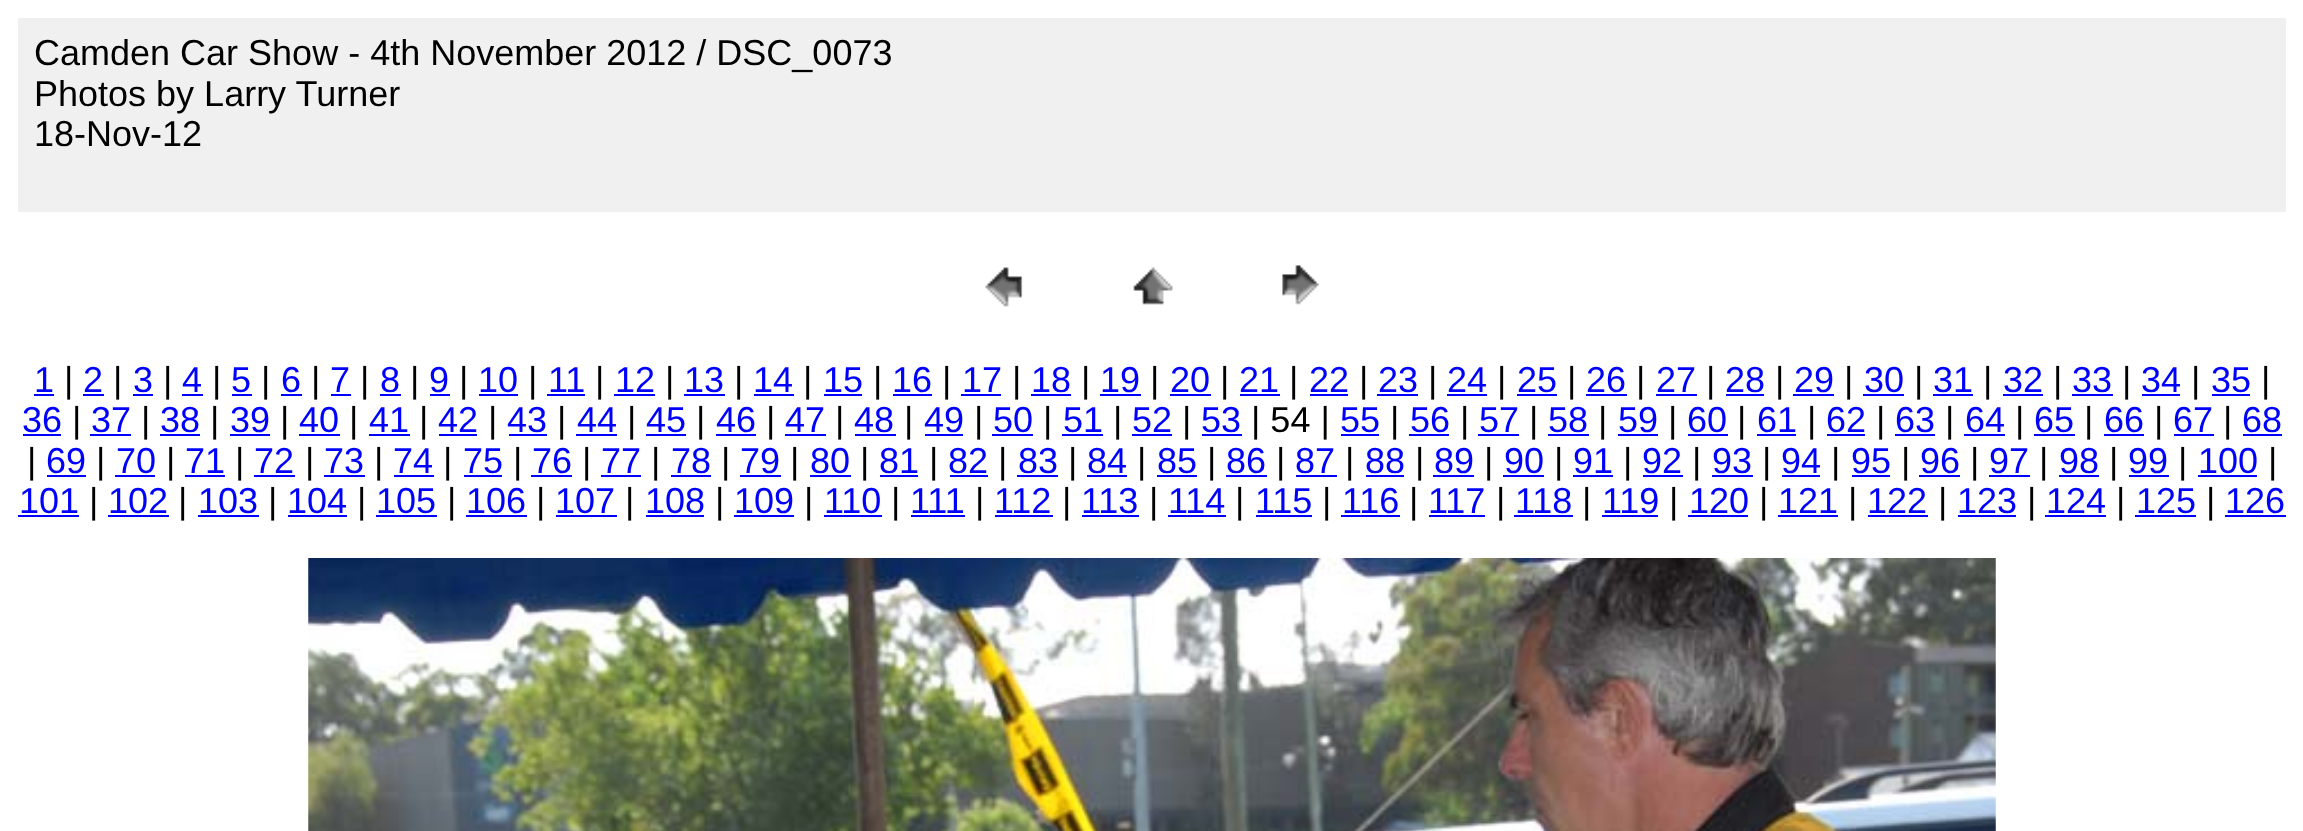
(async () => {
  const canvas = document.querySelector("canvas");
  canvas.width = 2303;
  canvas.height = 831;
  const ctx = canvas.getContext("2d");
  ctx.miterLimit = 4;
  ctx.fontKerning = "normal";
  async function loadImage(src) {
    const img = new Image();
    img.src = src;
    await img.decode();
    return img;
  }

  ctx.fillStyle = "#ffffff";
  ctx.fillRect(0, 0, 2303, 831);
  ctx.fillStyle = "#f0f0f0";
  ctx.fillRect(18, 18, 2268, 194);
  ctx.drawImage(await loadImage("img/1.png"), 985, 267, 38, 40);
  ctx.drawImage(await loadImage("img/2.png"), 1133, 267, 40, 38);
  ctx.drawImage(await loadImage("img/3.png"), 1282, 265, 38, 40);
  for (const [x, y, w, h, color] of [
    [34, 394, 20, 2, "#0000ff"],
    [83, 394, 21, 2, "#0000ff"],
    [133, 394, 20, 2, "#0000ff"],
    [182, 394, 21, 2, "#0000ff"],
    [232, 394, 20, 2, "#0000ff"],
    [281, 394, 21, 2, "#0000ff"],
    [331, 394, 20, 2, "#0000ff"],
    [380, 394, 21, 2, "#0000ff"],
    [430, 394, 20, 2, "#0000ff"],
    [479, 394, 39, 2, "#0000ff"],
    [547, 394, 38, 2, "#0000ff"],
    [614, 394, 41, 2, "#0000ff"],
    [684, 394, 41, 2, "#0000ff"],
    [754, 394, 40, 2, "#0000ff"],
    [824, 394, 38, 2, "#0000ff"],
    [893, 394, 39, 2, "#0000ff"],
    [961, 394, 40, 2, "#0000ff"],
    [1031, 394, 40, 2, "#0000ff"],
    [1100, 394, 41, 2, "#0000ff"],
    [1170, 394, 41, 2, "#0000ff"],
    [1240, 394, 40, 2, "#0000ff"],
    [1310, 394, 38, 2, "#0000ff"],
    [1377, 394, 41, 2, "#0000ff"],
    [1447, 394, 40, 2, "#0000ff"],
    [1517, 394, 40, 2, "#0000ff"],
    [1586, 394, 41, 2, "#0000ff"],
    [1656, 394, 41, 2, "#0000ff"],
    [1726, 394, 38, 2, "#0000ff"],
    [1793, 394, 41, 2, "#0000ff"],
    [1863, 394, 41, 2, "#0000ff"],
    [1933, 394, 40, 2, "#0000ff"],
    [2003, 394, 40, 2, "#0000ff"],
    [2072, 394, 41, 2, "#0000ff"],
    [2142, 394, 38, 2, "#0000ff"],
    [2212, 394, 38, 2, "#0000ff"],
    [23, 434, 38, 2, "#0000ff"],
    [90, 434, 41, 2, "#0000ff"],
    [160, 434, 40, 2, "#0000ff"],
    [230, 434, 40, 2, "#0000ff"],
    [299, 434, 41, 2, "#0000ff"],
    [369, 434, 41, 2, "#0000ff"],
    [439, 434, 38, 2, "#0000ff"],
    [509, 434, 38, 2, "#0000ff"],
    [576, 434, 41, 2, "#0000ff"],
    [646, 434, 40, 2, "#0000ff"],
    [716, 434, 40, 2, "#0000ff"],
    [785, 434, 41, 2, "#0000ff"],
    [855, 434, 41, 2, "#0000ff"],
    [925, 434, 38, 2, "#0000ff"],
    [992, 434, 41, 2, "#0000ff"],
    [1062, 434, 41, 2, "#0000ff"],
    [1132, 434, 40, 2, "#0000ff"],
    [1202, 434, 40, 2, "#0000ff"],
    [1341, 434, 38, 2, "#0000ff"],
    [1409, 434, 40, 2, "#0000ff"],
    [1478, 434, 41, 2, "#0000ff"],
    [1548, 434, 41, 2, "#0000ff"],
    [1618, 434, 40, 2, "#0000ff"],
    [1688, 434, 40, 2, "#0000ff"],
    [1757, 434, 39, 2, "#0000ff"],
    [1827, 434, 38, 2, "#0000ff"],
    [1895, 434, 40, 2, "#0000ff"],
    [1964, 434, 41, 2, "#0000ff"],
    [2034, 434, 41, 2, "#0000ff"],
    [2104, 434, 40, 2, "#0000ff"],
    [2174, 434, 40, 2, "#0000ff"],
    [2243, 434, 39, 2, "#0000ff"],
    [47, 475, 39, 2, "#0000ff"],
    [115, 475, 40, 2, "#0000ff"],
    [185, 475, 40, 2, "#0000ff"],
    [254, 475, 41, 2, "#0000ff"],
    [324, 475, 41, 2, "#0000ff"],
    [394, 475, 40, 2, "#0000ff"],
    [464, 475, 38, 2, "#0000ff"],
    [531, 475, 41, 2, "#0000ff"],
    [601, 475, 40, 2, "#0000ff"],
    [671, 475, 40, 2, "#0000ff"],
    [740, 475, 41, 2, "#0000ff"],
    [810, 475, 41, 2, "#0000ff"],
    [880, 475, 38, 2, "#0000ff"],
    [950, 475, 38, 2, "#0000ff"],
    [1017, 475, 41, 2, "#0000ff"],
    [1087, 475, 40, 2, "#0000ff"],
    [1157, 475, 40, 2, "#0000ff"],
    [1226, 475, 41, 2, "#0000ff"],
    [1296, 475, 41, 2, "#0000ff"],
    [1366, 475, 38, 2, "#0000ff"],
    [1433, 475, 41, 2, "#0000ff"],
    [1503, 475, 41, 2, "#0000ff"],
    [1573, 475, 40, 2, "#0000ff"],
    [1643, 475, 40, 2, "#0000ff"],
    [1712, 475, 41, 2, "#0000ff"],
    [1782, 475, 38, 2, "#0000ff"],
    [1852, 475, 38, 2, "#0000ff"],
    [1919, 475, 41, 2, "#0000ff"],
    [1989, 475, 41, 2, "#0000ff"],
    [2059, 475, 40, 2, "#0000ff"],
    [2129, 475, 40, 2, "#0000ff"],
    [2198, 475, 59, 2, "#0000ff"],
    [18, 515, 61, 2, "#0000ff"],
    [108, 515, 61, 2, "#0000ff"],
    [198, 515, 61, 2, "#0000ff"],
    [288, 515, 59, 2, "#0000ff"],
    [376, 515, 61, 2, "#0000ff"],
    [466, 515, 61, 2, "#0000ff"],
    [556, 515, 61, 2, "#0000ff"],
    [646, 515, 58, 2, "#0000ff"],
    [734, 515, 60, 2, "#0000ff"],
    [824, 515, 58, 2, "#0000ff"],
    [911, 515, 54, 2, "#0000ff"],
    [995, 515, 58, 2, "#0000ff"],
    [1082, 515, 57, 2, "#0000ff"],
    [1168, 515, 58, 2, "#0000ff"],
    [1256, 515, 56, 2, "#0000ff"],
    [1341, 515, 59, 2, "#0000ff"],
    [1429, 515, 56, 2, "#0000ff"],
    [1514, 515, 59, 2, "#0000ff"],
    [1602, 515, 56, 2, "#0000ff"],
    [1688, 515, 60, 2, "#0000ff"],
    [1778, 515, 60, 2, "#0000ff"],
    [1868, 515, 60, 2, "#0000ff"],
    [1958, 515, 58, 2, "#0000ff"],
    [2045, 515, 61, 2, "#0000ff"],
    [2135, 515, 61, 2, "#0000ff"],
    [2225, 515, 61, 2, "#0000ff"],
  ]) {
    ctx.fillStyle = color;
    ctx.fillRect(x, y, w, h);
  }
  ctx.drawImage(await loadImage("img/4.png"), 308, 558, 1688, 273);
  ctx.font = "36px Liberation Sans";
  ctx.fillStyle = "#000000";
  for (const [text, x, y] of [
    ["Camden Car Show - 4th November 2012 / DSC_0073", 34, 65],
    ["Photos by Larry Turner", 34, 106],
    ["18-Nov-12", 34, 146],
  ]) {
    ctx.fillText(text, x, y);
  }
  ctx.fillStyle = "#0000ff";
  ctx.fillText("1", 34, 392);
  ctx.fillStyle = "#000000";
  ctx.fillText("|", 64, 392);
  ctx.fillStyle = "#0000ff";
  ctx.fillText("2", 83, 392);
  ctx.fillStyle = "#000000";
  ctx.fillText("|", 113, 392);
  ctx.fillStyle = "#0000ff";
  ctx.fillText("3", 133, 392);
  ctx.fillStyle = "#000000";
  ctx.fillText("|", 163, 392);
  ctx.fillStyle = "#0000ff";
  ctx.fillText("4", 182, 392);
  ctx.fillStyle = "#000000";
  ctx.fillText("|", 212, 392);
  ctx.fillStyle = "#0000ff";
  ctx.fillText("5", 231, 392);
  ctx.fillStyle = "#000000";
  ctx.fillText("|", 261, 392);
  ctx.fillStyle = "#0000ff";
  ctx.fillText("6", 281, 392);
  ctx.fillStyle = "#000000";
  ctx.fillText("|", 311, 392);
  ctx.fillStyle = "#0000ff";
  ctx.fillText("7", 330, 392);
  ctx.fillStyle = "#000000";
  ctx.fillText("|", 360, 392);
  ctx.fillStyle = "#0000ff";
  ctx.fillText("8", 380, 392);
  ctx.fillStyle = "#000000";
  ctx.fillText("|", 410, 392);
  ctx.fillStyle = "#0000ff";
  ctx.fillText("9", 429, 392);
  ctx.fillStyle = "#000000";
  ctx.fillText("|", 459, 392);
  ctx.fillStyle = "#0000ff";
  ctx.fillText("10", 478, 392);
  ctx.fillStyle = "#000000";
  ctx.fillText("|", 528, 392);
  ctx.fillStyle = "#0000ff";
  ctx.fillText("11", 548, 392);
  ctx.fillStyle = "#000000";
  ctx.fillText("|", 595, 392);
  ctx.fillStyle = "#0000ff";
  ctx.fillText("12", 615, 392);
  ctx.fillStyle = "#000000";
  ctx.fillText("|", 665, 392);
  ctx.fillStyle = "#0000ff";
  ctx.fillText("13", 684, 392);
  ctx.fillStyle = "#000000";
  ctx.fillText("|", 734, 392);
  ctx.fillStyle = "#0000ff";
  ctx.fillText("14", 753, 392);
  ctx.fillStyle = "#000000";
  ctx.fillText("|", 803, 392);
  ctx.fillStyle = "#0000ff";
  ctx.fillText("15", 823, 392);
  ctx.fillStyle = "#000000";
  ctx.fillText("|", 873, 392);
  ctx.fillStyle = "#0000ff";
  ctx.fillText("16", 892, 392);
  ctx.fillStyle = "#000000";
  ctx.fillText("|", 942, 392);
  ctx.fillStyle = "#0000ff";
  ctx.fillText("17", 962, 392);
  ctx.fillStyle = "#000000";
  ctx.fillText("|", 1012, 392);
  ctx.fillStyle = "#0000ff";
  ctx.fillText("18", 1031, 392);
  ctx.fillStyle = "#000000";
  ctx.fillText("|", 1081, 392);
  ctx.fillStyle = "#0000ff";
  ctx.fillText("19", 1100, 392);
  ctx.fillStyle = "#000000";
  ctx.fillText("|", 1150, 392);
  ctx.fillStyle = "#0000ff";
  ctx.fillText("20", 1170, 392);
  ctx.fillStyle = "#000000";
  ctx.fillText("|", 1220, 392);
  ctx.fillStyle = "#0000ff";
  ctx.fillText("21", 1239, 392);
  ctx.fillStyle = "#000000";
  ctx.fillText("|", 1289, 392);
  ctx.fillStyle = "#0000ff";
  ctx.fillText("22", 1309, 392);
  ctx.fillStyle = "#000000";
  ctx.fillText("|", 1359, 392);
  ctx.fillStyle = "#0000ff";
  ctx.fillText("23", 1378, 392);
  ctx.fillStyle = "#000000";
  ctx.fillText("|", 1428, 392);
  ctx.fillStyle = "#0000ff";
  ctx.fillText("24", 1447, 392);
  ctx.fillStyle = "#000000";
  ctx.fillText("|", 1497, 392);
  ctx.fillStyle = "#0000ff";
  ctx.fillText("25", 1517, 392);
  ctx.fillStyle = "#000000";
  ctx.fillText("|", 1567, 392);
  ctx.fillStyle = "#0000ff";
  ctx.fillText("26", 1586, 392);
  ctx.fillStyle = "#000000";
  ctx.fillText("|", 1636, 392);
  ctx.fillStyle = "#0000ff";
  ctx.fillText("27", 1656, 392);
  ctx.fillStyle = "#000000";
  ctx.fillText("|", 1706, 392);
  ctx.fillStyle = "#0000ff";
  ctx.fillText("28", 1725, 392);
  ctx.fillStyle = "#000000";
  ctx.fillText("|", 1775, 392);
  ctx.fillStyle = "#0000ff";
  ctx.fillText("29", 1794, 392);
  ctx.fillStyle = "#000000";
  ctx.fillText("|", 1844, 392);
  ctx.fillStyle = "#0000ff";
  ctx.fillText("30", 1864, 392);
  ctx.fillStyle = "#000000";
  ctx.fillText("|", 1914, 392);
  ctx.fillStyle = "#0000ff";
  ctx.fillText("31", 1933, 392);
  ctx.fillStyle = "#000000";
  ctx.fillText("|", 1983, 392);
  ctx.fillStyle = "#0000ff";
  ctx.fillText("32", 2003, 392);
  ctx.fillStyle = "#000000";
  ctx.fillText("|", 2053, 392);
  ctx.fillStyle = "#0000ff";
  ctx.fillText("33", 2072, 392);
  ctx.fillStyle = "#000000";
  ctx.fillText("|", 2122, 392);
  ctx.fillStyle = "#0000ff";
  ctx.fillText("34", 2141, 392);
  ctx.fillStyle = "#000000";
  ctx.fillText("|", 2191, 392);
  ctx.fillStyle = "#0000ff";
  ctx.fillText("35", 2211, 392);
  ctx.fillStyle = "#000000";
  ctx.fillText("|", 2261, 392);
  ctx.fillStyle = "#0000ff";
  ctx.fillText("36", 22, 432);
  ctx.fillStyle = "#000000";
  ctx.fillText("|", 72, 432);
  ctx.fillStyle = "#0000ff";
  ctx.fillText("37", 91, 432);
  ctx.fillStyle = "#000000";
  ctx.fillText("|", 141, 432);
  ctx.fillStyle = "#0000ff";
  ctx.fillText("38", 160, 432);
  ctx.fillStyle = "#000000";
  ctx.fillText("|", 210, 432);
  ctx.fillStyle = "#0000ff";
  ctx.fillText("39", 230, 432);
  ctx.fillStyle = "#000000";
  ctx.fillText("|", 280, 432);
  ctx.fillStyle = "#0000ff";
  ctx.fillText("40", 299, 432);
  ctx.fillStyle = "#000000";
  ctx.fillText("|", 349, 432);
  ctx.fillStyle = "#0000ff";
  ctx.fillText("41", 369, 432);
  ctx.fillStyle = "#000000";
  ctx.fillText("|", 419, 432);
  ctx.fillStyle = "#0000ff";
  ctx.fillText("42", 438, 432);
  ctx.fillStyle = "#000000";
  ctx.fillText("|", 488, 432);
  ctx.fillStyle = "#0000ff";
  ctx.fillText("43", 507, 432);
  ctx.fillStyle = "#000000";
  ctx.fillText("|", 557, 432);
  ctx.fillStyle = "#0000ff";
  ctx.fillText("44", 577, 432);
  ctx.fillStyle = "#000000";
  ctx.fillText("|", 627, 432);
  ctx.fillStyle = "#0000ff";
  ctx.fillText("45", 646, 432);
  ctx.fillStyle = "#000000";
  ctx.fillText("|", 696, 432);
  ctx.fillStyle = "#0000ff";
  ctx.fillText("46", 716, 432);
  ctx.fillStyle = "#000000";
  ctx.fillText("|", 766, 432);
  ctx.fillStyle = "#0000ff";
  ctx.fillText("47", 785, 432);
  ctx.fillStyle = "#000000";
  ctx.fillText("|", 835, 432);
  ctx.fillStyle = "#0000ff";
  ctx.fillText("48", 854, 432);
  ctx.fillStyle = "#000000";
  ctx.fillText("|", 904, 432);
  ctx.fillStyle = "#0000ff";
  ctx.fillText("49", 924, 432);
  ctx.fillStyle = "#000000";
  ctx.fillText("|", 974, 432);
  ctx.fillStyle = "#0000ff";
  ctx.fillText("50", 993, 432);
  ctx.fillStyle = "#000000";
  ctx.fillText("|", 1043, 432);
  ctx.fillStyle = "#0000ff";
  ctx.fillText("51", 1063, 432);
  ctx.fillStyle = "#000000";
  ctx.fillText("|", 1113, 432);
  ctx.fillStyle = "#0000ff";
  ctx.fillText("52", 1132, 432);
  ctx.fillStyle = "#000000";
  ctx.fillText("|", 1182, 432);
  ctx.fillStyle = "#0000ff";
  ctx.fillText("53", 1201, 432);
  ctx.fillStyle = "#000000";
  ctx.fillText("| 54 |", 1251, 432);
  ctx.fillStyle = "#0000ff";
  ctx.fillText("55", 1340, 432);
  ctx.fillStyle = "#000000";
  ctx.fillText("|", 1390, 432);
  ctx.fillStyle = "#0000ff";
  ctx.fillText("56", 1410, 432);
  ctx.fillStyle = "#000000";
  ctx.fillText("|", 1460, 432);
  ctx.fillStyle = "#0000ff";
  ctx.fillText("57", 1479, 432);
  ctx.fillStyle = "#000000";
  ctx.fillText("|", 1529, 432);
  ctx.fillStyle = "#0000ff";
  ctx.fillText("58", 1548, 432);
  ctx.fillStyle = "#000000";
  ctx.fillText("|", 1598, 432);
  ctx.fillStyle = "#0000ff";
  ctx.fillText("59", 1618, 432);
  ctx.fillStyle = "#000000";
  ctx.fillText("|", 1668, 432);
  ctx.fillStyle = "#0000ff";
  ctx.fillText("60", 1687, 432);
  ctx.fillStyle = "#000000";
  ctx.fillText("|", 1737, 432);
  ctx.fillStyle = "#0000ff";
  ctx.fillText("61", 1757, 432);
  ctx.fillStyle = "#000000";
  ctx.fillText("|", 1807, 432);
  ctx.fillStyle = "#0000ff";
  ctx.fillText("62", 1826, 432);
  ctx.fillStyle = "#000000";
  ctx.fillText("|", 1876, 432);
  ctx.fillStyle = "#0000ff";
  ctx.fillText("63", 1895, 432);
  ctx.fillStyle = "#000000";
  ctx.fillText("|", 1945, 432);
  ctx.fillStyle = "#0000ff";
  ctx.fillText("64", 1965, 432);
  ctx.fillStyle = "#000000";
  ctx.fillText("|", 2015, 432);
  ctx.fillStyle = "#0000ff";
  ctx.fillText("65", 2034, 432);
  ctx.fillStyle = "#000000";
  ctx.fillText("|", 2084, 432);
  ctx.fillStyle = "#0000ff";
  ctx.fillText("66", 2104, 432);
  ctx.fillStyle = "#000000";
  ctx.fillText("|", 2154, 432);
  ctx.fillStyle = "#0000ff";
  ctx.fillText("67", 2173, 432);
  ctx.fillStyle = "#000000";
  ctx.fillText("|", 2223, 432);
  ctx.fillStyle = "#0000ff";
  ctx.fillText("68", 2242, 432);
  ctx.fillStyle = "#000000";
  ctx.fillText("|", 27, 473);
  ctx.fillStyle = "#0000ff";
  ctx.fillText("69", 46, 473);
  ctx.fillStyle = "#000000";
  ctx.fillText("|", 96, 473);
  ctx.fillStyle = "#0000ff";
  ctx.fillText("70", 116, 473);
  ctx.fillStyle = "#000000";
  ctx.fillText("|", 166, 473);
  ctx.fillStyle = "#0000ff";
  ctx.fillText("71", 185, 473);
  ctx.fillStyle = "#000000";
  ctx.fillText("|", 235, 473);
  ctx.fillStyle = "#0000ff";
  ctx.fillText("72", 254, 473);
  ctx.fillStyle = "#000000";
  ctx.fillText("|", 305, 473);
  ctx.fillStyle = "#0000ff";
  ctx.fillText("73", 324, 473);
  ctx.fillStyle = "#000000";
  ctx.fillText("|", 374, 473);
  ctx.fillStyle = "#0000ff";
  ctx.fillText("74", 393, 473);
  ctx.fillStyle = "#000000";
  ctx.fillText("|", 443, 473);
  ctx.fillStyle = "#0000ff";
  ctx.fillText("75", 463, 473);
  ctx.fillStyle = "#000000";
  ctx.fillText("|", 513, 473);
  ctx.fillStyle = "#0000ff";
  ctx.fillText("76", 532, 473);
  ctx.fillStyle = "#000000";
  ctx.fillText("|", 582, 473);
  ctx.fillStyle = "#0000ff";
  ctx.fillText("77", 601, 473);
  ctx.fillStyle = "#000000";
  ctx.fillText("|", 651, 473);
  ctx.fillStyle = "#0000ff";
  ctx.fillText("78", 671, 473);
  ctx.fillStyle = "#000000";
  ctx.fillText("|", 721, 473);
  ctx.fillStyle = "#0000ff";
  ctx.fillText("79", 740, 473);
  ctx.fillStyle = "#000000";
  ctx.fillText("|", 790, 473);
  ctx.fillStyle = "#0000ff";
  ctx.fillText("80", 810, 473);
  ctx.fillStyle = "#000000";
  ctx.fillText("|", 860, 473);
  ctx.fillStyle = "#0000ff";
  ctx.fillText("81", 879, 473);
  ctx.fillStyle = "#000000";
  ctx.fillText("|", 929, 473);
  ctx.fillStyle = "#0000ff";
  ctx.fillText("82", 948, 473);
  ctx.fillStyle = "#000000";
  ctx.fillText("|", 998, 473);
  ctx.fillStyle = "#0000ff";
  ctx.fillText("83", 1018, 473);
  ctx.fillStyle = "#000000";
  ctx.fillText("|", 1068, 473);
  ctx.fillStyle = "#0000ff";
  ctx.fillText("84", 1087, 473);
  ctx.fillStyle = "#000000";
  ctx.fillText("|", 1137, 473);
  ctx.fillStyle = "#0000ff";
  ctx.fillText("85", 1157, 473);
  ctx.fillStyle = "#000000";
  ctx.fillText("|", 1207, 473);
  ctx.fillStyle = "#0000ff";
  ctx.fillText("86", 1226, 473);
  ctx.fillStyle = "#000000";
  ctx.fillText("|", 1276, 473);
  ctx.fillStyle = "#0000ff";
  ctx.fillText("87", 1295, 473);
  ctx.fillStyle = "#000000";
  ctx.fillText("|", 1345, 473);
  ctx.fillStyle = "#0000ff";
  ctx.fillText("88", 1365, 473);
  ctx.fillStyle = "#000000";
  ctx.fillText("|", 1415, 473);
  ctx.fillStyle = "#0000ff";
  ctx.fillText("89", 1434, 473);
  ctx.fillStyle = "#000000";
  ctx.fillText("|", 1484, 473);
  ctx.fillStyle = "#0000ff";
  ctx.fillText("90", 1504, 473);
  ctx.fillStyle = "#000000";
  ctx.fillText("|", 1554, 473);
  ctx.fillStyle = "#0000ff";
  ctx.fillText("91", 1573, 473);
  ctx.fillStyle = "#000000";
  ctx.fillText("|", 1623, 473);
  ctx.fillStyle = "#0000ff";
  ctx.fillText("92", 1642, 473);
  ctx.fillStyle = "#000000";
  ctx.fillText("|", 1692, 473);
  ctx.fillStyle = "#0000ff";
  ctx.fillText("93", 1712, 473);
  ctx.fillStyle = "#000000";
  ctx.fillText("|", 1762, 473);
  ctx.fillStyle = "#0000ff";
  ctx.fillText("94", 1781, 473);
  ctx.fillStyle = "#000000";
  ctx.fillText("|", 1831, 473);
  ctx.fillStyle = "#0000ff";
  ctx.fillText("95", 1851, 473);
  ctx.fillStyle = "#000000";
  ctx.fillText("|", 1901, 473);
  ctx.fillStyle = "#0000ff";
  ctx.fillText("96", 1920, 473);
  ctx.fillStyle = "#000000";
  ctx.fillText("|", 1970, 473);
  ctx.fillStyle = "#0000ff";
  ctx.fillText("97", 1989, 473);
  ctx.fillStyle = "#000000";
  ctx.fillText("|", 2039, 473);
  ctx.fillStyle = "#0000ff";
  ctx.fillText("98", 2059, 473);
  ctx.fillStyle = "#000000";
  ctx.fillText("|", 2109, 473);
  ctx.fillStyle = "#0000ff";
  ctx.fillText("99", 2128, 473);
  ctx.fillStyle = "#000000";
  ctx.fillText("|", 2178, 473);
  ctx.fillStyle = "#0000ff";
  ctx.fillText("100", 2198, 473);
  ctx.fillStyle = "#000000";
  ctx.fillText("|", 2268, 473);
  ctx.fillStyle = "#0000ff";
  ctx.fillText("101", 19, 513);
  ctx.fillStyle = "#000000";
  ctx.fillText("|", 89, 513);
  ctx.fillStyle = "#0000ff";
  ctx.fillText("102", 108, 513);
  ctx.fillStyle = "#000000";
  ctx.fillText("|", 178, 513);
  ctx.fillStyle = "#0000ff";
  ctx.fillText("103", 198, 513);
  ctx.fillStyle = "#000000";
  ctx.fillText("|", 268, 513);
  ctx.fillStyle = "#0000ff";
  ctx.fillText("104", 287, 513);
  ctx.fillStyle = "#000000";
  ctx.fillText("|", 357, 513);
  ctx.fillStyle = "#0000ff";
  ctx.fillText("105", 376, 513);
  ctx.fillStyle = "#000000";
  ctx.fillText("|", 447, 513);
  ctx.fillStyle = "#0000ff";
  ctx.fillText("106", 466, 513);
  ctx.fillStyle = "#000000";
  ctx.fillText("|", 536, 513);
  ctx.fillStyle = "#0000ff";
  ctx.fillText("107", 555, 513);
  ctx.fillStyle = "#000000";
  ctx.fillText("|", 625, 513);
  ctx.fillStyle = "#0000ff";
  ctx.fillText("108", 645, 513);
  ctx.fillStyle = "#000000";
  ctx.fillText("|", 715, 513);
  ctx.fillStyle = "#0000ff";
  ctx.fillText("109", 734, 513);
  ctx.fillStyle = "#000000";
  ctx.fillText("|", 804, 513);
  ctx.fillStyle = "#0000ff";
  ctx.fillText("110", 824, 513);
  ctx.fillStyle = "#000000";
  ctx.fillText("|", 891, 513);
  ctx.fillStyle = "#0000ff";
  ctx.fillText("111", 910, 513);
  ctx.fillStyle = "#000000";
  ctx.fillText("|", 975, 513);
  ctx.fillStyle = "#0000ff";
  ctx.fillText("112", 994, 513);
  ctx.fillStyle = "#000000";
  ctx.fillText("|", 1062, 513);
  ctx.fillStyle = "#0000ff";
  ctx.fillText("113", 1081, 513);
  ctx.fillStyle = "#000000";
  ctx.fillText("|", 1149, 513);
  ctx.fillStyle = "#0000ff";
  ctx.fillText("114", 1168, 513);
  ctx.fillStyle = "#000000";
  ctx.fillText("|", 1235, 513);
  ctx.fillStyle = "#0000ff";
  ctx.fillText("115", 1255, 513);
  ctx.fillStyle = "#000000";
  ctx.fillText("|", 1322, 513);
  ctx.fillStyle = "#0000ff";
  ctx.fillText("116", 1342, 513);
  ctx.fillStyle = "#000000";
  ctx.fillText("|", 1409, 513);
  ctx.fillStyle = "#0000ff";
  ctx.fillText("117", 1428, 513);
  ctx.fillStyle = "#000000";
  ctx.fillText("|", 1496, 513);
  ctx.fillStyle = "#0000ff";
  ctx.fillText("118", 1515, 513);
  ctx.fillStyle = "#000000";
  ctx.fillText("|", 1582, 513);
  ctx.fillStyle = "#0000ff";
  ctx.fillText("119", 1602, 513);
  ctx.fillStyle = "#000000";
  ctx.fillText("|", 1669, 513);
  ctx.fillStyle = "#0000ff";
  ctx.fillText("120", 1689, 513);
  ctx.fillStyle = "#000000";
  ctx.fillText("|", 1759, 513);
  ctx.fillStyle = "#0000ff";
  ctx.fillText("121", 1778, 513);
  ctx.fillStyle = "#000000";
  ctx.fillText("|", 1848, 513);
  ctx.fillStyle = "#0000ff";
  ctx.fillText("122", 1867, 513);
  ctx.fillStyle = "#000000";
  ctx.fillText("|", 1938, 513);
  ctx.fillStyle = "#0000ff";
  ctx.fillText("123", 1957, 513);
  ctx.fillStyle = "#000000";
  ctx.fillText("|", 2027, 513);
  ctx.fillStyle = "#0000ff";
  ctx.fillText("124", 2046, 513);
  ctx.fillStyle = "#000000";
  ctx.fillText("|", 2116, 513);
  ctx.fillStyle = "#0000ff";
  ctx.fillText("125", 2136, 513);
  ctx.fillStyle = "#000000";
  ctx.fillText("|", 2206, 513);
  ctx.fillStyle = "#0000ff";
  ctx.fillText("126", 2225, 513);
})();
